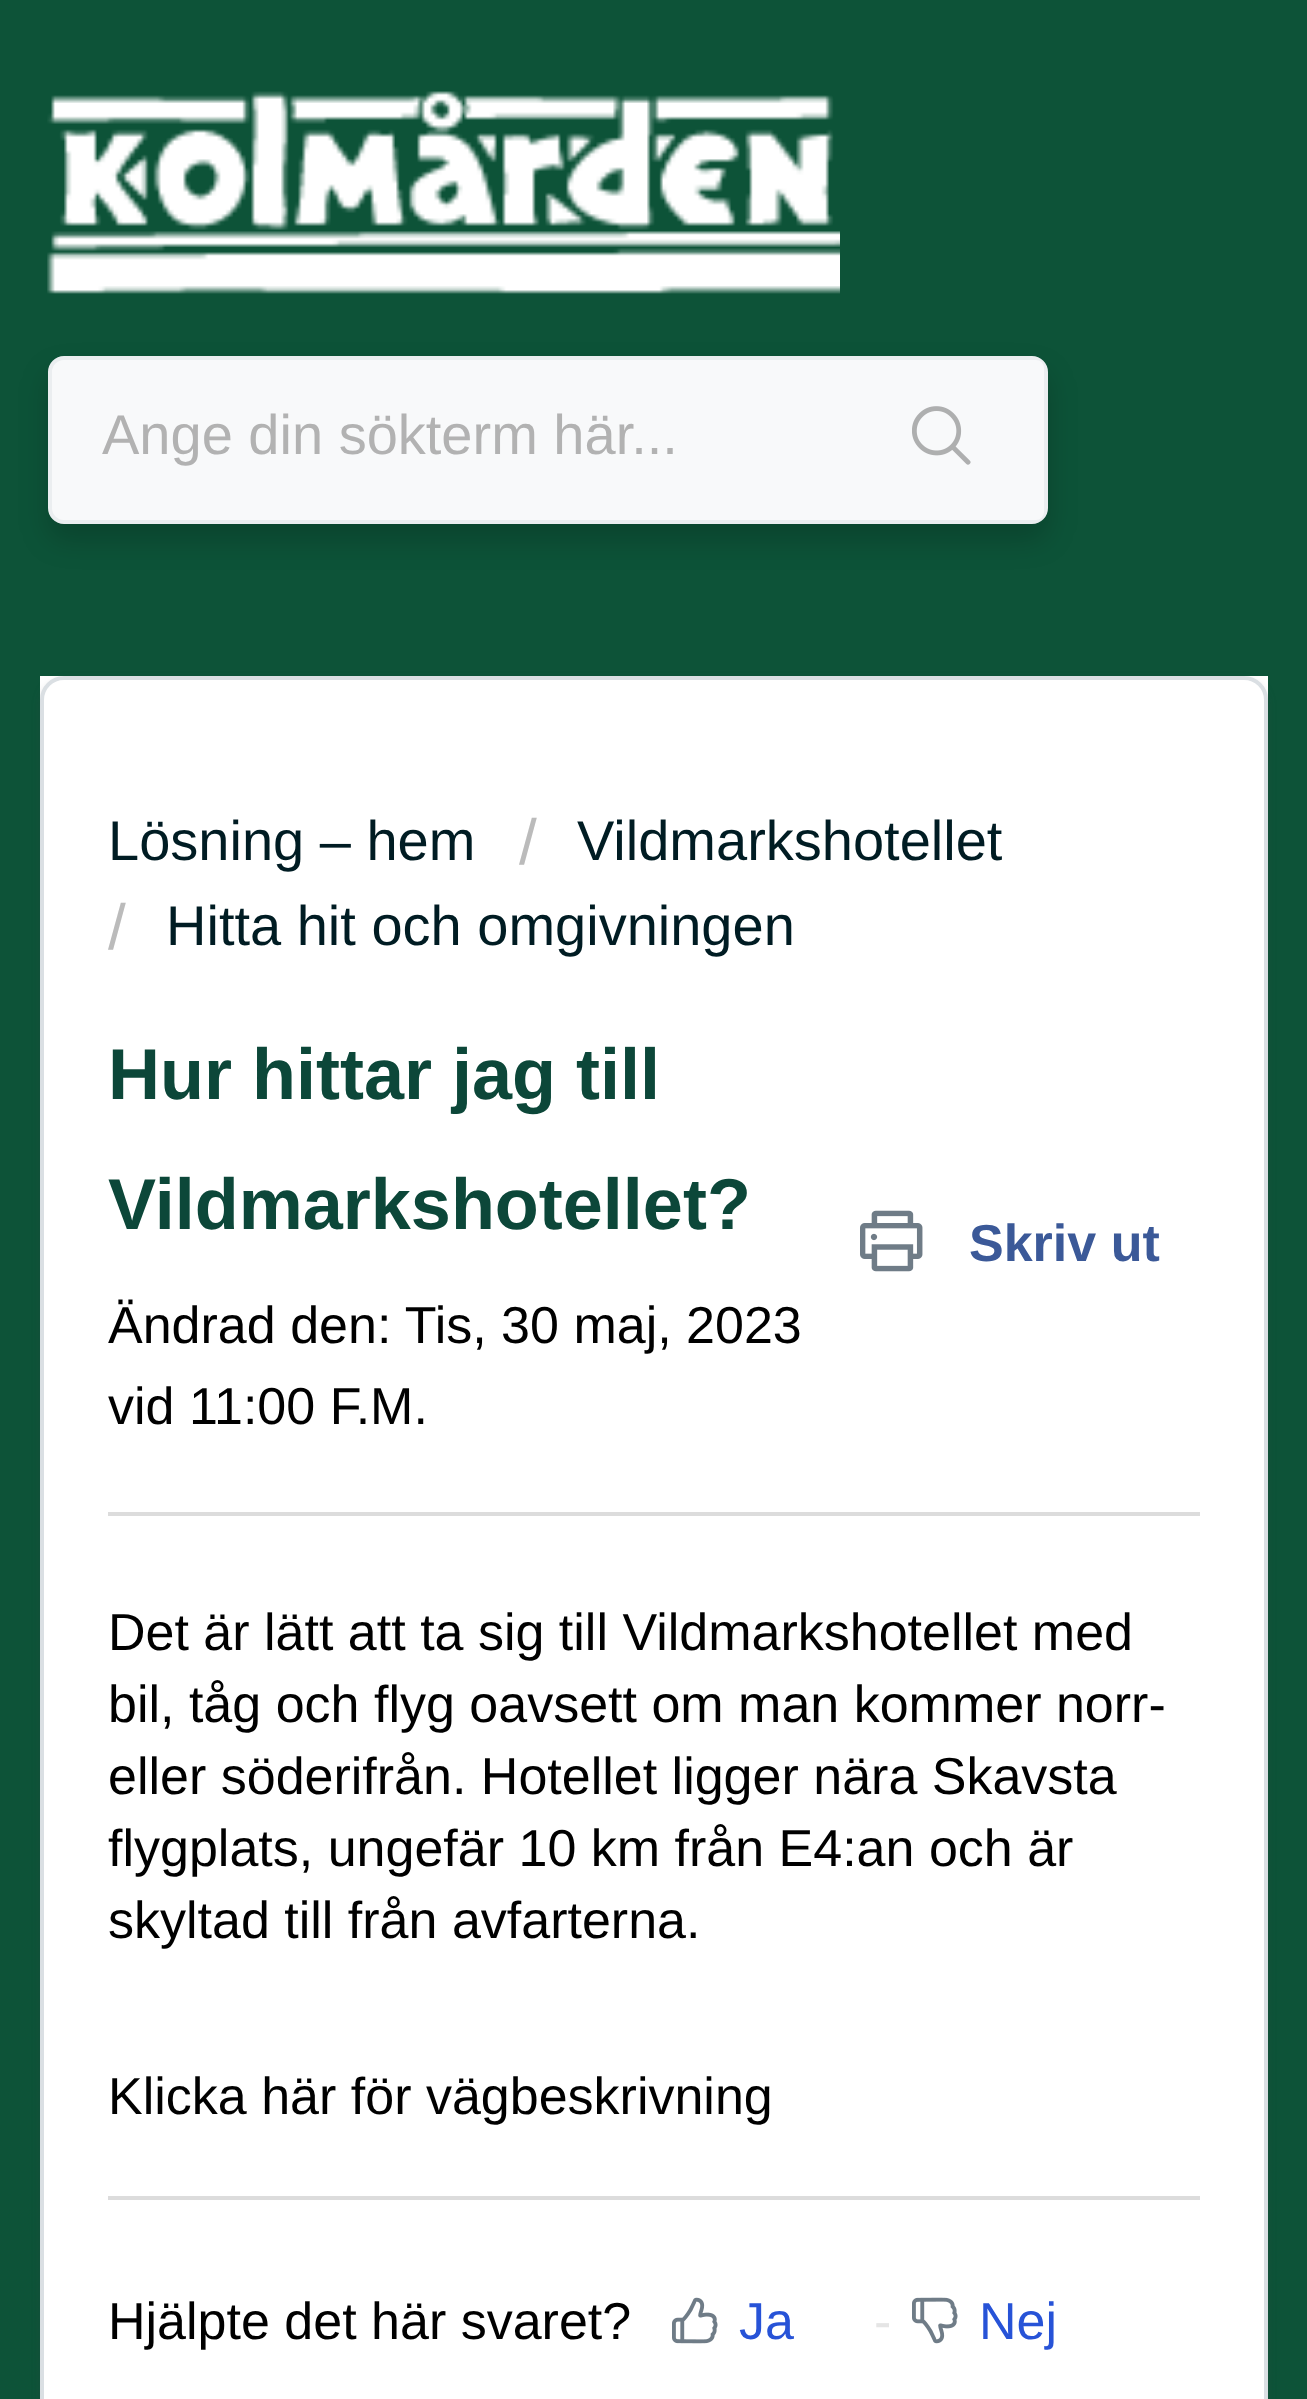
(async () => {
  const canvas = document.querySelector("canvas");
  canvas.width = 1307;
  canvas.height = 2399;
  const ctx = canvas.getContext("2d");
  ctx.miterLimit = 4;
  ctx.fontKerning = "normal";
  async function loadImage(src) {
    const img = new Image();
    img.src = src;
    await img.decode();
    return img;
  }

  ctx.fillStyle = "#0d5338";
  ctx.fillRect(0, 0, 1307, 2399);
  ctx.drawImage(await loadImage("img/1.png"), 47, 91, 793, 203);
  ctx.fillStyle = "rgba(0, 0, 0, 0.18)";
  ctx.filter = "blur(14.5px)";
  ctx.beginPath();
  ctx.roundRect(48, 372, 1000, 168, 16);
  ctx.fill();
  ctx.filter = "none";
  ctx.fillStyle = "#f8f9fa";
  ctx.beginPath();
  ctx.roundRect(50, 358, 996, 164, 14);
  ctx.fill();
  ctx.strokeStyle = "#ebeef0";
  ctx.lineWidth = 4;
  ctx.stroke();
  ctx.beginPath();
  ctx.roundRect(848, 360, 196, 160, 8);
  ctx.fill();
  ctx.drawImage(await loadImage("img/2.png"), 912, 406, 59, 59);
  ctx.fillStyle = "#ffffff";
  ctx.fillRect(40, 676, 1228, 24);
  ctx.fillStyle = "rgba(63, 63, 68, 0.15)";
  ctx.filter = "blur(4px)";
  ctx.beginPath();
  ctx.roundRect(40, 680, 1228, 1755, 24);
  ctx.fill();
  ctx.filter = "none";
  ctx.fillStyle = "#ffffff";
  ctx.beginPath();
  ctx.roundRect(42, 678, 1224, 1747, 22);
  ctx.fill();
  ctx.strokeStyle = "#dadfe3";
  ctx.stroke();
  ctx.drawImage(await loadImage("img/3.png"), 860, 1210, 63, 62);
  ctx.fillStyle = "#dcdcdc";
  ctx.fillRect(108, 1512, 1092, 4);
  ctx.fillRect(108, 2196, 1092, 4);
  ctx.drawImage(await loadImage("img/4.png"), 672, 2297, 46, 47);
  ctx.drawImage(await loadImage("img/5.png"), 912, 2297, 46, 47);
  ctx.font = "56px Liberation Sans";
  ctx.fillStyle = "#b2b2b2";
  ctx.fillText("Ange din sökterm här...", 102, 454);
  ctx.fillStyle = "#001c23";
  ctx.fillText("Lösning – hem", 108, 860);
  ctx.font = "64px Liberation Sans";
  ctx.fillStyle = "#bbbbbb";
  ctx.fillText("/", 519, 864);
  ctx.font = "56px Liberation Sans";
  ctx.fillStyle = "#001c23";
  ctx.fillText("Vildmarkshotellet", 577, 860);
  ctx.font = "64px Liberation Sans";
  ctx.fillStyle = "#bbbbbb";
  ctx.fillText("/", 108, 949);
  ctx.font = "56px Liberation Sans";
  ctx.fillStyle = "#001c23";
  ctx.fillText("Hitta hit och omgivningen", 166, 945);
  ctx.font = "bold 72px Liberation Sans";
  ctx.fillStyle = "#0c4739";
  ctx.fillText("Hur hittar jag till", 108, 1099);
  ctx.fillText("Vildmarkshotellet?", 108, 1229);
  ctx.font = "bold 52px Liberation Sans";
  ctx.fillStyle = "#3b5998";
  ctx.fillText("Skriv ut", 969, 1261);
  ctx.font = "52px Liberation Sans";
  ctx.fillStyle = "#000000";
  for (const [text, x, y] of [
    ["Ändrad den: Tis, 30 maj, 2023", 108, 1343],
    ["vid 11:00 F.M.", 108, 1424],
    ["Det är lätt att ta sig till Vildmarkshotellet med", 108, 1650],
    ["bil, tåg och flyg oavsett om man kommer norr-", 108, 1722],
    ["eller söderifrån. Hotellet ligger nära Skavsta", 108, 1794],
    ["flygplats, ungefär 10 km från E4:an och är", 108, 1866],
    ["skyltad till från avfarterna.", 108, 1938],
    ["Klicka här för vägbeskrivning", 108, 2114],
    ["Hjälpte det här svaret?", 108, 2339],
  ]) {
    ctx.fillText(text, x, y);
  }
  ctx.fillStyle = "#2753d7";
  ctx.fillText("Ja", 739, 2339);
  ctx.fillStyle = "#e5e5e5";
  ctx.fillText("-", 874, 2339);
  ctx.fillStyle = "#2753d7";
  ctx.fillText("Nej", 979, 2339);
})();
